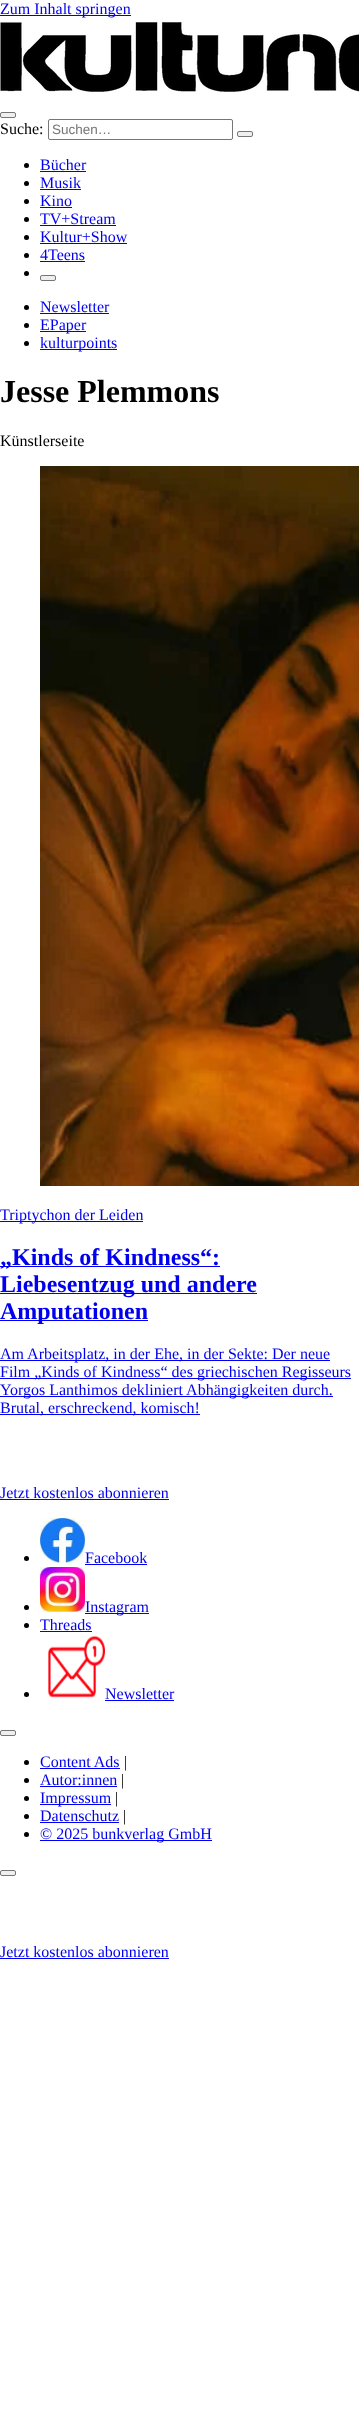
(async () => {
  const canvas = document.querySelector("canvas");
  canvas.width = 359;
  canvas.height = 2414;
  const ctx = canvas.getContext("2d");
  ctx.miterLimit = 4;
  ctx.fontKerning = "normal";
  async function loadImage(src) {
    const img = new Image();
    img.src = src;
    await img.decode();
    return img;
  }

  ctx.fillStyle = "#ffffff";
  ctx.fillRect(0, 0, 359, 2414);
  ctx.fillStyle = "#0000ee";
  ctx.fillRect(0, 15, 131, 1);
  ctx.drawImage(await loadImage("img/1.png"), 0, 22, 359, 70);
  ctx.fillStyle = "#efefef";
  ctx.beginPath();
  ctx.roundRect(0.5, 112.5, 15, 5, 1.5);
  ctx.fill();
  ctx.strokeStyle = "#767676";
  ctx.stroke();
  ctx.beginPath();
  ctx.roundRect(48.5, 119.5, 184, 20, 1.5);
  ctx.stroke();
  ctx.beginPath();
  ctx.roundRect(237.5, 131.5, 15, 5, 1.5);
  ctx.fill();
  ctx.stroke();
  ctx.fillStyle = "#000000";
  ctx.beginPath();
  ctx.arc(26.5, 165.5, 2.5, 0, Math.PI * 2);
  ctx.fill();
  ctx.fillStyle = "#0000ee";
  ctx.fillRect(40, 171, 46, 1);
  ctx.fillStyle = "#000000";
  ctx.beginPath();
  ctx.arc(26.5, 183.5, 2.5, 0, Math.PI * 2);
  ctx.fill();
  ctx.fillStyle = "#0000ee";
  ctx.fillRect(40, 189, 41, 1);
  ctx.fillStyle = "#000000";
  ctx.beginPath();
  ctx.arc(26.5, 201.5, 2.5, 0, Math.PI * 2);
  ctx.fill();
  ctx.fillStyle = "#0000ee";
  ctx.fillRect(40, 207, 32, 1);
  ctx.fillStyle = "#000000";
  ctx.beginPath();
  ctx.arc(26.5, 219.5, 2.5, 0, Math.PI * 2);
  ctx.fill();
  ctx.fillStyle = "#0000ee";
  ctx.fillRect(40, 225, 76, 1);
  ctx.fillStyle = "#000000";
  ctx.beginPath();
  ctx.arc(26.5, 237.5, 2.5, 0, Math.PI * 2);
  ctx.fill();
  ctx.fillStyle = "#0000ee";
  ctx.fillRect(40, 243, 87, 1);
  ctx.fillStyle = "#000000";
  ctx.beginPath();
  ctx.arc(26.5, 255.5, 2.5, 0, Math.PI * 2);
  ctx.fill();
  ctx.fillStyle = "#0000ee";
  ctx.fillRect(40, 261, 45, 1);
  ctx.fillStyle = "#000000";
  ctx.beginPath();
  ctx.arc(26.5, 273.5, 2.5, 0, Math.PI * 2);
  ctx.fill();
  ctx.fillStyle = "#efefef";
  ctx.beginPath();
  ctx.roundRect(40.5, 275.5, 15, 5, 1.5);
  ctx.fill();
  ctx.stroke();
  ctx.fillStyle = "#000000";
  ctx.beginPath();
  ctx.arc(26.5, 307.5, 2.5, 0, Math.PI * 2);
  ctx.fill();
  ctx.fillStyle = "#0000ee";
  ctx.fillRect(40, 313, 69, 1);
  ctx.fillStyle = "#000000";
  ctx.beginPath();
  ctx.arc(26.5, 325.5, 2.5, 0, Math.PI * 2);
  ctx.fill();
  ctx.fillStyle = "#0000ee";
  ctx.fillRect(40, 331, 46, 1);
  ctx.fillStyle = "#000000";
  ctx.beginPath();
  ctx.arc(26.5, 343.5, 2.5, 0, Math.PI * 2);
  ctx.fill();
  ctx.fillStyle = "#0000ee";
  ctx.fillRect(40, 349, 77, 1);
  ctx.drawImage(await loadImage("img/2.png"), 40, 466, 319, 720);
  for (const [x, y, w, h, color] of [
    [0, 1221, 143, 1, "#0000ee"],
    [0, 1266, 220, 1, "#0000ee"],
    [0, 1293, 257, 1, "#0000ee"],
    [0, 1320, 148, 1, "#0000ee"],
    [0, 1360, 330, 1, "#0000ee"],
    [0, 1378, 351, 1, "#0000ee"],
    [0, 1396, 333, 1, "#0000ee"],
    [0, 1414, 200, 1, "#0000ee"],
    [0, 1499, 169, 1, "#0000ee"],
  ]) {
    ctx.fillStyle = color;
    ctx.fillRect(x, y, w, h);
  }
  ctx.fillStyle = "#000000";
  ctx.beginPath();
  ctx.arc(26.5, 1558.5, 2.5, 0, Math.PI * 2);
  ctx.fill();
  ctx.drawImage(await loadImage("img/3.png"), 40, 1518, 45, 45);
  ctx.fillStyle = "#0000ee";
  ctx.fillRect(85, 1564, 62, 1);
  ctx.fillStyle = "#000000";
  ctx.beginPath();
  ctx.arc(26.5, 1607.5, 2.5, 0, Math.PI * 2);
  ctx.fill();
  ctx.drawImage(await loadImage("img/4.png"), 40, 1567, 45, 45);
  ctx.fillStyle = "#0000ee";
  ctx.fillRect(85, 1613, 64, 1);
  ctx.fillStyle = "#000000";
  ctx.beginPath();
  ctx.arc(26.5, 1625.5, 2.5, 0, Math.PI * 2);
  ctx.fill();
  ctx.fillStyle = "#0000ee";
  ctx.fillRect(40, 1631, 52, 1);
  ctx.fillStyle = "#000000";
  ctx.beginPath();
  ctx.arc(26.5, 1694.5, 2.5, 0, Math.PI * 2);
  ctx.fill();
  ctx.drawImage(await loadImage("img/5.png"), 48, 1635, 57, 63);
  ctx.fillStyle = "#0000ee";
  ctx.fillRect(105, 1700, 69, 1);
  ctx.fillStyle = "#efefef";
  ctx.beginPath();
  ctx.roundRect(0.5, 1730.5, 15, 5, 1.5);
  ctx.fill();
  ctx.stroke();
  ctx.fillStyle = "#000000";
  ctx.beginPath();
  ctx.arc(26.5, 1762.5, 2.5, 0, Math.PI * 2);
  ctx.fill();
  ctx.fillStyle = "#0000ee";
  ctx.fillRect(40, 1768, 80, 1);
  ctx.fillStyle = "#000000";
  ctx.beginPath();
  ctx.arc(26.5, 1780.5, 2.5, 0, Math.PI * 2);
  ctx.fill();
  ctx.fillStyle = "#0000ee";
  ctx.fillRect(40, 1786, 77, 1);
  ctx.fillStyle = "#000000";
  ctx.beginPath();
  ctx.arc(26.5, 1798.5, 2.5, 0, Math.PI * 2);
  ctx.fill();
  ctx.fillStyle = "#0000ee";
  ctx.fillRect(40, 1804, 71, 1);
  ctx.fillStyle = "#000000";
  ctx.beginPath();
  ctx.arc(26.5, 1816.5, 2.5, 0, Math.PI * 2);
  ctx.fill();
  ctx.fillStyle = "#0000ee";
  ctx.fillRect(40, 1822, 79, 1);
  ctx.fillStyle = "#000000";
  ctx.beginPath();
  ctx.arc(26.5, 1834.5, 2.5, 0, Math.PI * 2);
  ctx.fill();
  ctx.fillStyle = "#0000ee";
  ctx.fillRect(40, 1840, 172, 1);
  ctx.fillStyle = "#efefef";
  ctx.beginPath();
  ctx.roundRect(0.5, 1870.5, 15, 5, 1.5);
  ctx.fill();
  ctx.stroke();
  ctx.fillStyle = "#0000ee";
  ctx.fillRect(0, 1958, 169, 1);
  ctx.font = "16px Liberation Serif";
  ctx.fillText("Zum Inhalt springen", 0, 14);
  ctx.fillStyle = "#000000";
  ctx.fillText("Suche:", 0, 134);
  ctx.font = "13.5px Liberation Sans";
  ctx.fillStyle = "#757575";
  ctx.fillText("Suchen…", 52, 134);
  ctx.font = "16px Liberation Serif";
  ctx.fillStyle = "#0000ee";
  for (const [text, x, y] of [
    ["Bücher", 40, 170],
    ["Musik", 40, 188],
    ["Kino", 40, 206],
    ["TV+Stream", 40, 224],
    ["Kultur+Show", 40, 242],
    ["4Teens", 40, 260],
    ["Newsletter", 40, 312],
    ["EPaper", 40, 330],
    ["kulturpoints", 40, 348],
  ]) {
    ctx.fillText(text, x, y);
  }
  ctx.font = "bold 32px Liberation Serif";
  ctx.fillStyle = "#000000";
  ctx.fillText("Jesse Plemmons", 0, 402);
  ctx.font = "16px Liberation Serif";
  ctx.fillText("Künstlerseite", 0, 446);
  ctx.fillStyle = "#0000ee";
  ctx.fillText("Triptychon der Leiden", 0, 1220);
  ctx.font = "bold 24px Liberation Serif";
  for (const [text, x, y] of [
    ["„Kinds of Kindness“:", 0, 1265],
    ["Liebesentzug und andere", 0, 1292],
    ["Amputationen", 0, 1319],
  ]) {
    ctx.fillText(text, x, y);
  }
  ctx.font = "16px Liberation Serif";
  for (const [text, x, y] of [
    ["Am Arbeitsplatz, in der Ehe, in der Sekte: Der neue", 0, 1359],
    ["Film „Kinds of Kindness“ des griechischen Regisseurs", 0, 1377],
    ["Yorgos Lanthimos dekliniert Abhängigkeiten durch.", 0, 1395],
    ["Brutal, erschreckend, komisch!", 0, 1413],
    ["Jetzt kostenlos abonnieren", 0, 1498],
    ["Facebook", 85, 1563],
    ["Instagram", 85, 1612],
    ["Threads", 40, 1630],
    ["Newsletter", 105, 1699],
    ["Content Ads", 40, 1767],
  ]) {
    ctx.fillText(text, x, y);
  }
  ctx.fillStyle = "#000000";
  ctx.fillText("|", 124, 1767);
  ctx.fillStyle = "#0000ee";
  ctx.fillText("Autor:innen", 40, 1785);
  ctx.fillStyle = "#000000";
  ctx.fillText("|", 121, 1785);
  ctx.fillStyle = "#0000ee";
  ctx.fillText("Impressum", 40, 1803);
  ctx.fillStyle = "#000000";
  ctx.fillText("|", 115, 1803);
  ctx.fillStyle = "#0000ee";
  ctx.fillText("Datenschutz", 40, 1821);
  ctx.fillStyle = "#000000";
  ctx.fillText("|", 123, 1821);
  ctx.fillStyle = "#0000ee";
  ctx.fillText("© 2025 bunkverlag GmbH", 40, 1839);
  ctx.fillText("Jetzt kostenlos abonnieren", 0, 1957);
})();
